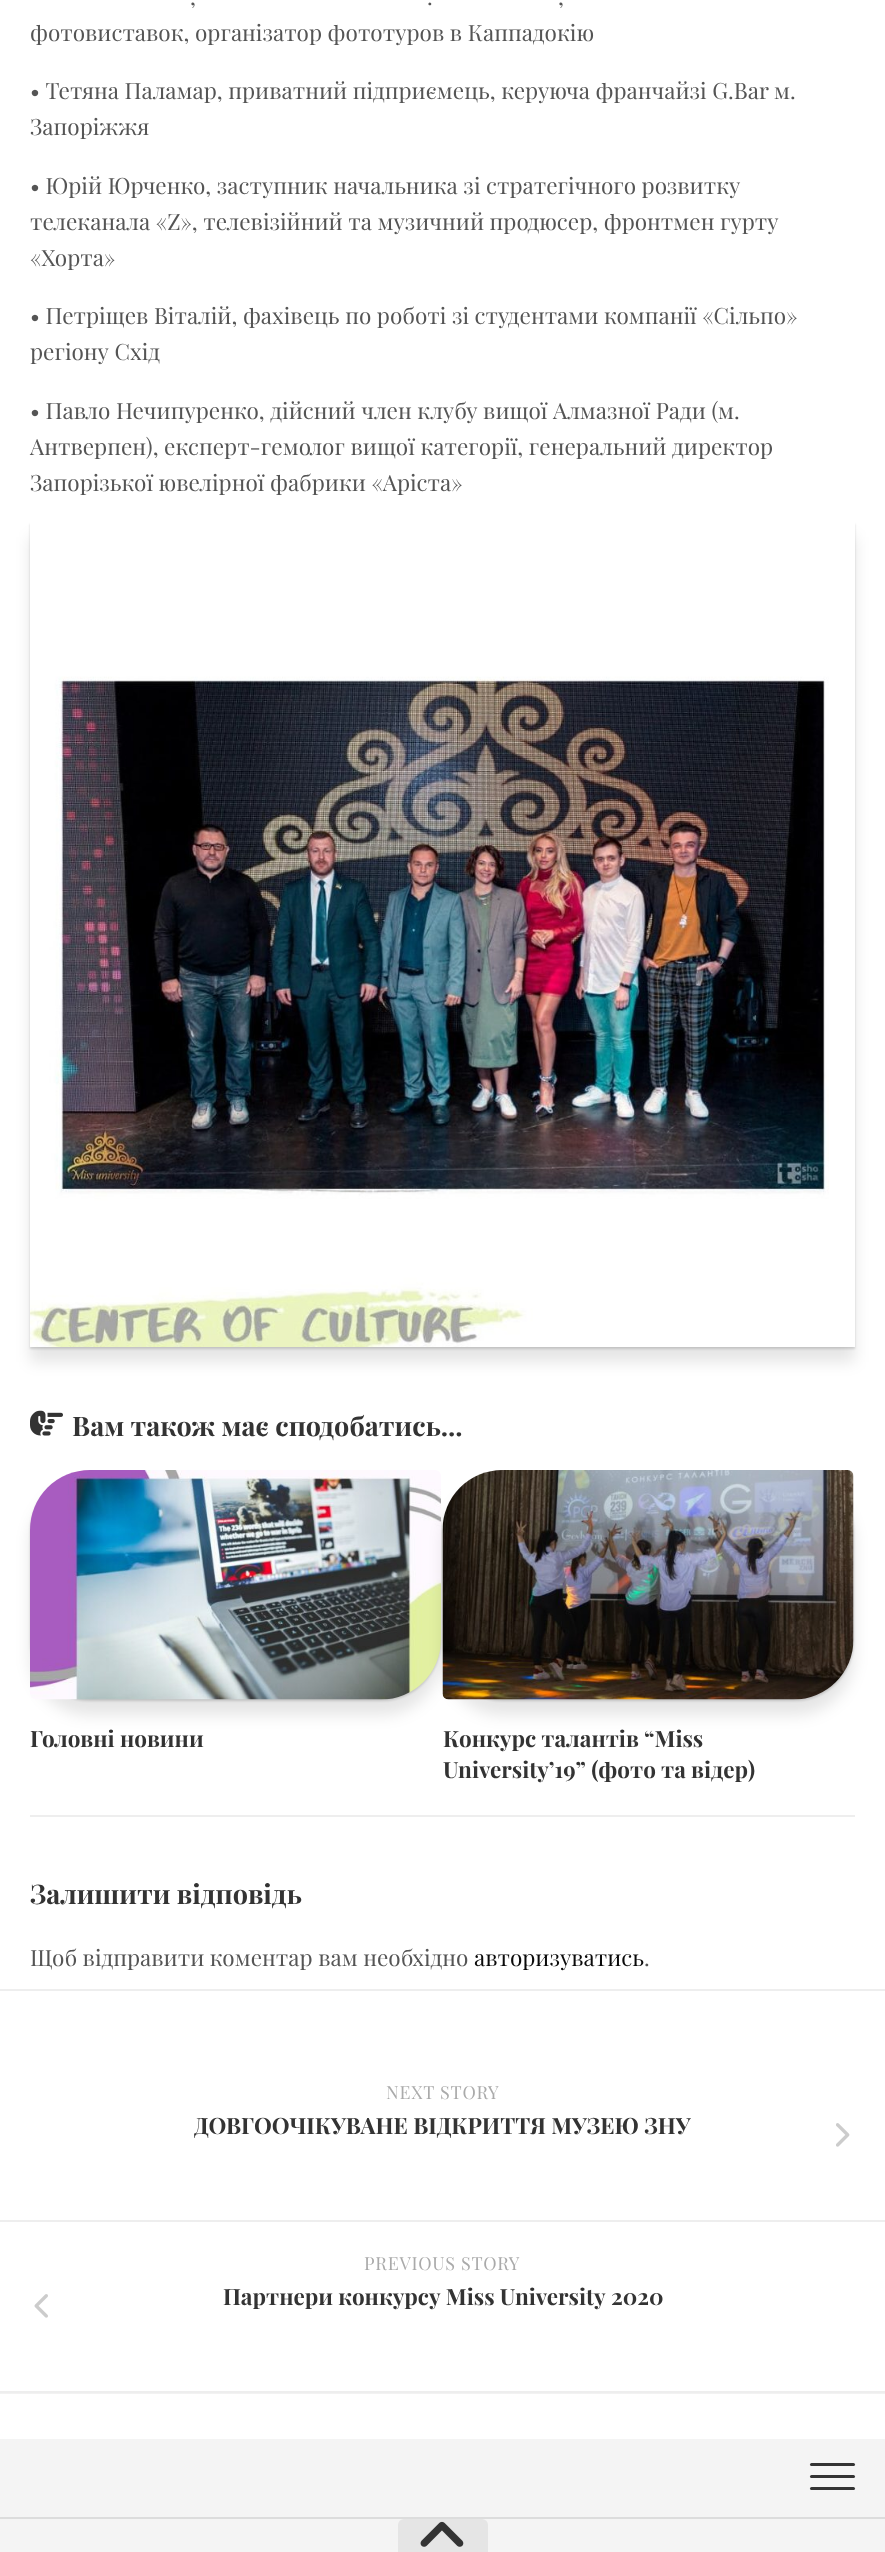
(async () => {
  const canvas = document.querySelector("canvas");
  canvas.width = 885;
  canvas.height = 2552;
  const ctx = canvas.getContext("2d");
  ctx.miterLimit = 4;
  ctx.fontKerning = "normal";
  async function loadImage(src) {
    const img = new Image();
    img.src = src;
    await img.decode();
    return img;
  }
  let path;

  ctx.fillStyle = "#ffffff";
  ctx.fillRect(0, 0, 885, 2552);
  ctx.fillStyle = "#f2f2f2";
  ctx.fillRect(0, 2393, 885, 1);
  ctx.save();
  path = new Path2D("M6 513H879V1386H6ZM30 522H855V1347H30Z");
  ctx.clip(path, "evenodd");
  ctx.fillStyle = "rgba(0, 0, 0, 0.1)";
  ctx.filter = "blur(7.5px)";
  ctx.beginPath();
  ctx.rect(30, 537, 825, 825);
  ctx.fill();
  ctx.filter = "none";
  ctx.restore();
  ctx.save();
  path = new Path2D("M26 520H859V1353H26ZM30 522H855V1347H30Z");
  ctx.clip(path, "evenodd");
  ctx.fillStyle = "rgba(0, 0, 0, 0.15)";
  ctx.filter = "blur(1px)";
  ctx.beginPath();
  ctx.rect(30, 524, 825, 825);
  ctx.fill();
  ctx.filter = "none";
  ctx.restore();
  ctx.drawImage(await loadImage("img/1.png"), 30, 676, 799, 671);
  ctx.drawImage(await loadImage("img/2.png"), 30, 1410, 33, 26);
  ctx.fillStyle = "#eeeeee";
  ctx.fillRect(30, 1815, 825, 2);
  ctx.fillStyle = "rgba(0, 0, 0, 0.15)";
  ctx.filter = "blur(1px)";
  ctx.beginPath();
  ctx.roundRect(30, 1472, 411, 229, 60);
  ctx.fill();
  ctx.filter = "none";
  ctx.fillStyle = "rgba(0, 0, 0, 0.1)";
  ctx.filter = "blur(7.5px)";
  ctx.beginPath();
  ctx.roundRect(30, 1485, 411, 230, 60);
  ctx.fill();
  ctx.filter = "none";
  ctx.drawImage(await loadImage("img/3.png"), 30, 1470, 411, 230);
  ctx.fillStyle = "rgba(0, 0, 0, 0.15)";
  ctx.filter = "blur(1px)";
  ctx.beginPath();
  ctx.roundRect(443, 1472, 411, 229, 60);
  ctx.fill();
  ctx.filter = "none";
  ctx.fillStyle = "rgba(0, 0, 0, 0.1)";
  ctx.filter = "blur(7.5px)";
  ctx.beginPath();
  ctx.roundRect(443, 1485, 411, 230, 60);
  ctx.fill();
  ctx.filter = "none";
  ctx.drawImage(await loadImage("img/4.png"), 442, 1470, 412, 230);
  ctx.fillStyle = "#eeeeee";
  ctx.fillRect(0, 1989, 885, 2);
  ctx.fillRect(0, 2220, 885, 2);
  ctx.drawImage(await loadImage("img/5.png"), 836, 2123, 14, 24);
  ctx.fillRect(0, 2391, 885, 2);
  ctx.drawImage(await loadImage("img/6.png"), 34, 2294, 14, 24);
  ctx.fillStyle = "#f4f4f4";
  ctx.fillRect(0, 2439, 885, 113);
  ctx.fillStyle = "#dcdcdc";
  ctx.fillRect(0, 2517, 885, 2);
  ctx.fillStyle = "#333333";
  ctx.beginPath();
  ctx.roundRect(810, 2463, 45, 3, 1.5);
  ctx.fill();
  ctx.beginPath();
  ctx.roundRect(810, 2475, 45, 3, 1.5);
  ctx.fill();
  ctx.beginPath();
  ctx.roundRect(810, 2487, 45, 3, 1.5);
  ctx.fill();
  ctx.fillStyle = "#e5e5e5";
  ctx.beginPath();
  ctx.roundRect(398, 2519, 90, 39, 6);
  ctx.fill();
  ctx.drawImage(await loadImage("img/7.png"), 420, 2521, 44, 26);
  ctx.font = "22.5px Playfair Display";
  ctx.fillStyle = "#555555";
  for (const [text, x, y] of [
    [",", 190, 5],
    [".", 427, 5],
    [",", 558, 5],
    ["фотовиставок, організатор фототуров в Каппадокію", 30, 41],
    ["• Тетяна Паламар, приватний підприємець, керуюча франчайзі G.Bar м.", 30, 99],
    ["Запоріжжя", 30, 135],
    ["• Юрій Юрченко, заступник начальника зі стратегічного розвитку", 30, 194],
    ["телеканала «Z», телевізійний та музичний продюсер, фронтмен гурту", 30, 230],
    ["«Хорта»", 30, 266],
    ["• Петріщев Віталій, фахівець по роботі зі студентами компанії «Сільпо»", 30, 324],
    ["регіону Схід", 30, 360],
    ["• Павло Нечипуренко, дійсний член клубу вищої Алмазної Ради (м.", 30, 419],
    ["Антверпен), експерт-гемолог вищої категорії, генеральний директор", 30, 455],
    ["Запорізької ювелірної фабрики «Аріста»", 30, 491],
  ]) {
    ctx.fillText(text, x, y);
  }
  ctx.font = "bold 27px Playfair Display";
  ctx.fillStyle = "#333333";
  ctx.fillText("Вам також має сподобатись...", 72, 1436);
  ctx.font = "bold 22.5px Playfair Display";
  for (const [text, x, y] of [
    ["Головні новини", 30, 1747],
    ["Конкурс талантів “Miss", 443, 1747],
    ["University’19” (фото та відер)", 443, 1778],
  ]) {
    ctx.fillText(text, x, y);
  }
  ctx.font = "bold 27px Playfair Display";
  ctx.fillText("Залишити відповідь", 30, 1904);
  ctx.font = "22.5px Playfair Display";
  ctx.fillStyle = "#555555";
  ctx.fillText("Щоб відправити коментар вам необхідно", 30, 1966);
  ctx.fillStyle = "#0a0a0a";
  ctx.fillText("авторизуватись", 474, 1966);
  ctx.fillStyle = "#555555";
  ctx.fillText(".", 644, 1966);
  ctx.letterSpacing = "0.75px";
  ctx.font = "18px Playfair Display";
  ctx.fillStyle = "#aaaaaa";
  ctx.fillText("NEXT STORY", 386, 2099);
  ctx.letterSpacing = "0px";
  ctx.font = "bold 22.5px Playfair Display";
  ctx.fillStyle = "#333333";
  ctx.fillText("ДОВГООЧІКУВАНЕ ВІДКРИТТЯ МУЗЕЮ ЗНУ", 194, 2134);
  ctx.letterSpacing = "0.75px";
  ctx.font = "18px Playfair Display";
  ctx.fillStyle = "#aaaaaa";
  ctx.fillText("PREVIOUS STORY", 364, 2270);
  ctx.letterSpacing = "0px";
  ctx.font = "bold 22.5px Playfair Display";
  ctx.fillStyle = "#333333";
  ctx.fillText("Партнери конкурсу Miss University 2020", 223, 2305);
})();
